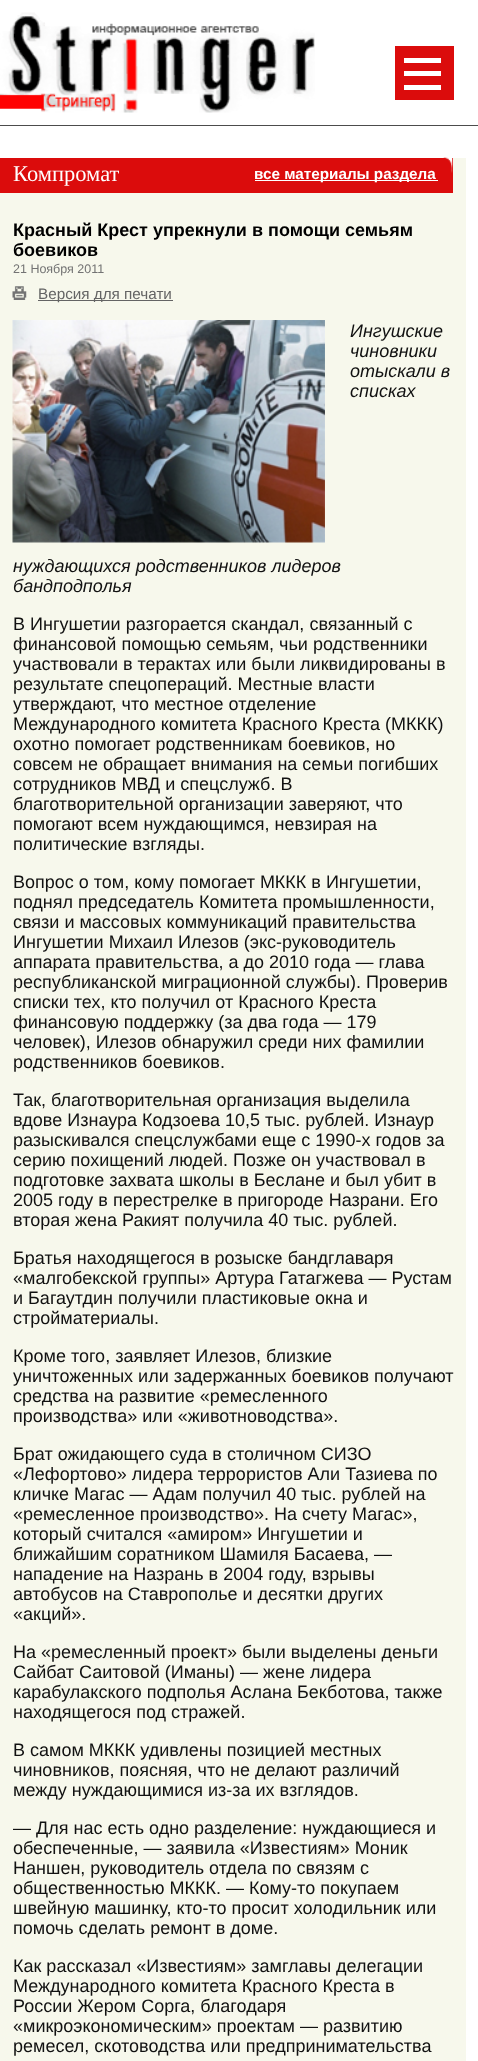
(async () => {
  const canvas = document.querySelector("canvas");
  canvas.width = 478;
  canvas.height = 2061;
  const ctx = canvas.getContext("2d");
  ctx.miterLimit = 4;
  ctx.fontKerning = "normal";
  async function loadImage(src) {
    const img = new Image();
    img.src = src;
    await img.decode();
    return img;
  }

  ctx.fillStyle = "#ffffff";
  ctx.fillRect(0, 0, 478, 2061);
  ctx.fillStyle = "#4c4c4c";
  ctx.fillRect(0, 125, 478, 1);
  ctx.drawImage(await loadImage("img/1.png"), 0, 12, 315, 101);
  for (const [x, y, w, h, color] of [
    [395, 46, 59, 54, "#db0c0c"],
    [404, 58, 37, 5, "#ffffff"],
    [404, 71, 37, 5, "#ffffff"],
    [404, 85, 37, 5, "#ffffff"],
    [0, 158, 466, 1903, "#f7f8ec"],
    [0, 158, 453, 35, "#db0c0c"],
  ]) {
    ctx.fillStyle = color;
    ctx.fillRect(x, y, w, h);
  }
  ctx.drawImage(await loadImage("img/2.png"), 443, 157, 10, 16);
  ctx.fillStyle = "#ffffff";
  ctx.fillRect(255, 180, 183, 1);
  ctx.drawImage(await loadImage("img/3.png"), 12, 286, 15, 14);
  ctx.fillStyle = "#646464";
  ctx.fillRect(38, 300, 135, 1);
  ctx.drawImage(await loadImage("img/4.png"), 12, 320, 313, 223);
  ctx.font = "22.5px Liberation Serif";
  ctx.fillStyle = "#ffffff";
  ctx.fillText("Компромат", 13, 181);
  ctx.font = "bold 15.25px Liberation Sans";
  ctx.fillText("все материалы раздела", 254, 179);
  ctx.font = "bold 18px Liberation Sans";
  ctx.fillStyle = "#000000";
  ctx.fillText("Красный Крест упрекнули в помощи семьям", 13, 236);
  ctx.fillText("боевиков", 13, 256);
  ctx.font = "12.5px Liberation Sans";
  ctx.fillStyle = "#737373";
  ctx.fillText("21 Ноября 2011", 13, 273);
  ctx.font = "15.25px Liberation Sans";
  ctx.fillStyle = "#646464";
  ctx.fillText("Версия для печати", 38, 299);
  ctx.font = "italic 18px Liberation Sans";
  ctx.fillStyle = "#111111";
  for (const [text, x, y] of [
    ["Ингушские", 350, 337],
    ["чиновники", 350, 357],
    ["отыскали в", 350, 377],
    ["списках", 350, 397],
    ["нуждающихся родственников лидеров", 13, 572],
    ["бандподполья", 13, 592],
  ]) {
    ctx.fillText(text, x, y);
  }
  ctx.font = "18px Liberation Sans";
  for (const [text, x, y] of [
    ["В Ингушетии разгорается скандал, связанный с", 13, 630],
    ["финансовой помощью семьям, чьи родственники", 13, 650],
    ["участвовали в терактах или были ликвидированы в", 13, 670],
    ["результате спецопераций. Местные власти", 13, 690],
    ["утверждают, что местное отделение", 13, 710],
    ["Международного комитета Красного Креста (МККК)", 13, 730],
    ["охотно помогает родственникам боевиков, но", 13, 750],
    ["совсем не обращает внимания на семьи погибших", 13, 770],
    ["сотрудников МВД и спецслужб. В", 13, 790],
    ["благотворительной организации заверяют, что", 13, 810],
    ["помогают всем нуждающимся, невзирая на", 13, 830],
    ["политические взгляды.", 13, 850],
    ["Вопрос о том, кому помогает МККК в Ингушетии,", 13, 888],
    ["поднял председатель Комитета промышленности,", 13, 908],
    ["связи и массовых коммуникаций правительства", 13, 928],
    ["Ингушетии Михаил Илезов (экс-руководитель", 13, 948],
    ["аппарата правительства, а до 2010 года — глава", 13, 968],
    ["республиканской миграционной службы). Проверив", 13, 988],
    ["списки тех, кто получил от Красного Креста", 13, 1008],
    ["финансовую поддержку (за два года — 179", 13, 1028],
    ["человек), Илезов обнаружил среди них фамилии", 13, 1048],
    ["родственников боевиков.", 13, 1068],
    ["Так, благотворительная организация выделила", 13, 1106],
    ["вдове Изнаура Кодзоева 10,5 тыс. рублей. Изнаур", 13, 1126],
    ["разыскивался спецслужбами еще с 1990-х годов за", 13, 1146],
    ["серию похищений людей. Позже он участвовал в", 13, 1166],
    ["подготовке захвата школы в Беслане и был убит в", 13, 1186],
    ["2005 году в перестрелке в пригороде Назрани. Его", 13, 1206],
    ["вторая жена Ракият получила 40 тыс. рублей.", 13, 1226],
    ["Братья находящегося в розыске бандглаваря", 13, 1264],
    ["«малгобекской группы» Артура Гатагжева — Рустам", 13, 1284],
    ["и Багаутдин получили пластиковые окна и", 13, 1304],
    ["стройматериалы.", 13, 1324],
    ["Кроме того, заявляет Илезов, близкие", 13, 1362],
    ["уничтоженных или задержанных боевиков получают", 13, 1382],
    ["средства на развитие «ремесленного", 13, 1402],
    ["производства» или «животноводства».", 13, 1422],
    ["Брат ожидающего суда в столичном СИЗО", 13, 1460],
    ["«Лефортово» лидера террористов Али Тазиева по", 13, 1480],
    ["кличке Магас — Адам получил 40 тыс. рублей на", 13, 1500],
    ["«ремесленное производство». На счету Магас»,", 13, 1520],
    ["который считался «амиром» Ингушетии и", 13, 1540],
    ["ближайшим соратником Шамиля Басаева, —", 13, 1560],
    ["нападение на Назрань в 2004 году, взрывы", 13, 1580],
    ["автобусов на Ставрополье и десятки других", 13, 1600],
    ["«акций».", 13, 1620],
    ["На «ремесленный проект» были выделены деньги", 13, 1658],
    ["Сайбат Саитовой (Иманы) — жене лидера", 13, 1678],
    ["карабулакского подполья Аслана Бекботова, также", 13, 1698],
    ["находящегося под стражей.", 13, 1718],
    ["В самом МККК удивлены позицией местных", 13, 1756],
    ["чиновников, поясняя, что не делают различий", 13, 1776],
    ["между нуждающимися из-за их взглядов.", 13, 1796],
    ["— Для нас есть одно разделение: нуждающиеся и", 13, 1834],
    ["обеспеченные, — заявила «Известиям» Моник", 13, 1854],
    ["Наншен, руководитель отдела по связям с", 13, 1874],
    ["общественностью МККК. — Кому-то покупаем", 13, 1894],
    ["швейную машинку, кто-то просит холодильник или", 13, 1914],
    ["помочь сделать ремонт в доме.", 13, 1934],
    ["Как рассказал «Известиям» замглавы делегации", 13, 1972],
    ["Международного комитета Красного Креста в", 13, 1992],
    ["России Жером Сорга, благодаря", 13, 2012],
    ["«микроэкономическим» проектам — развитию", 13, 2032],
    ["ремесел, скотоводства или предпринимательства", 13, 2052],
  ]) {
    ctx.fillText(text, x, y);
  }
})();
